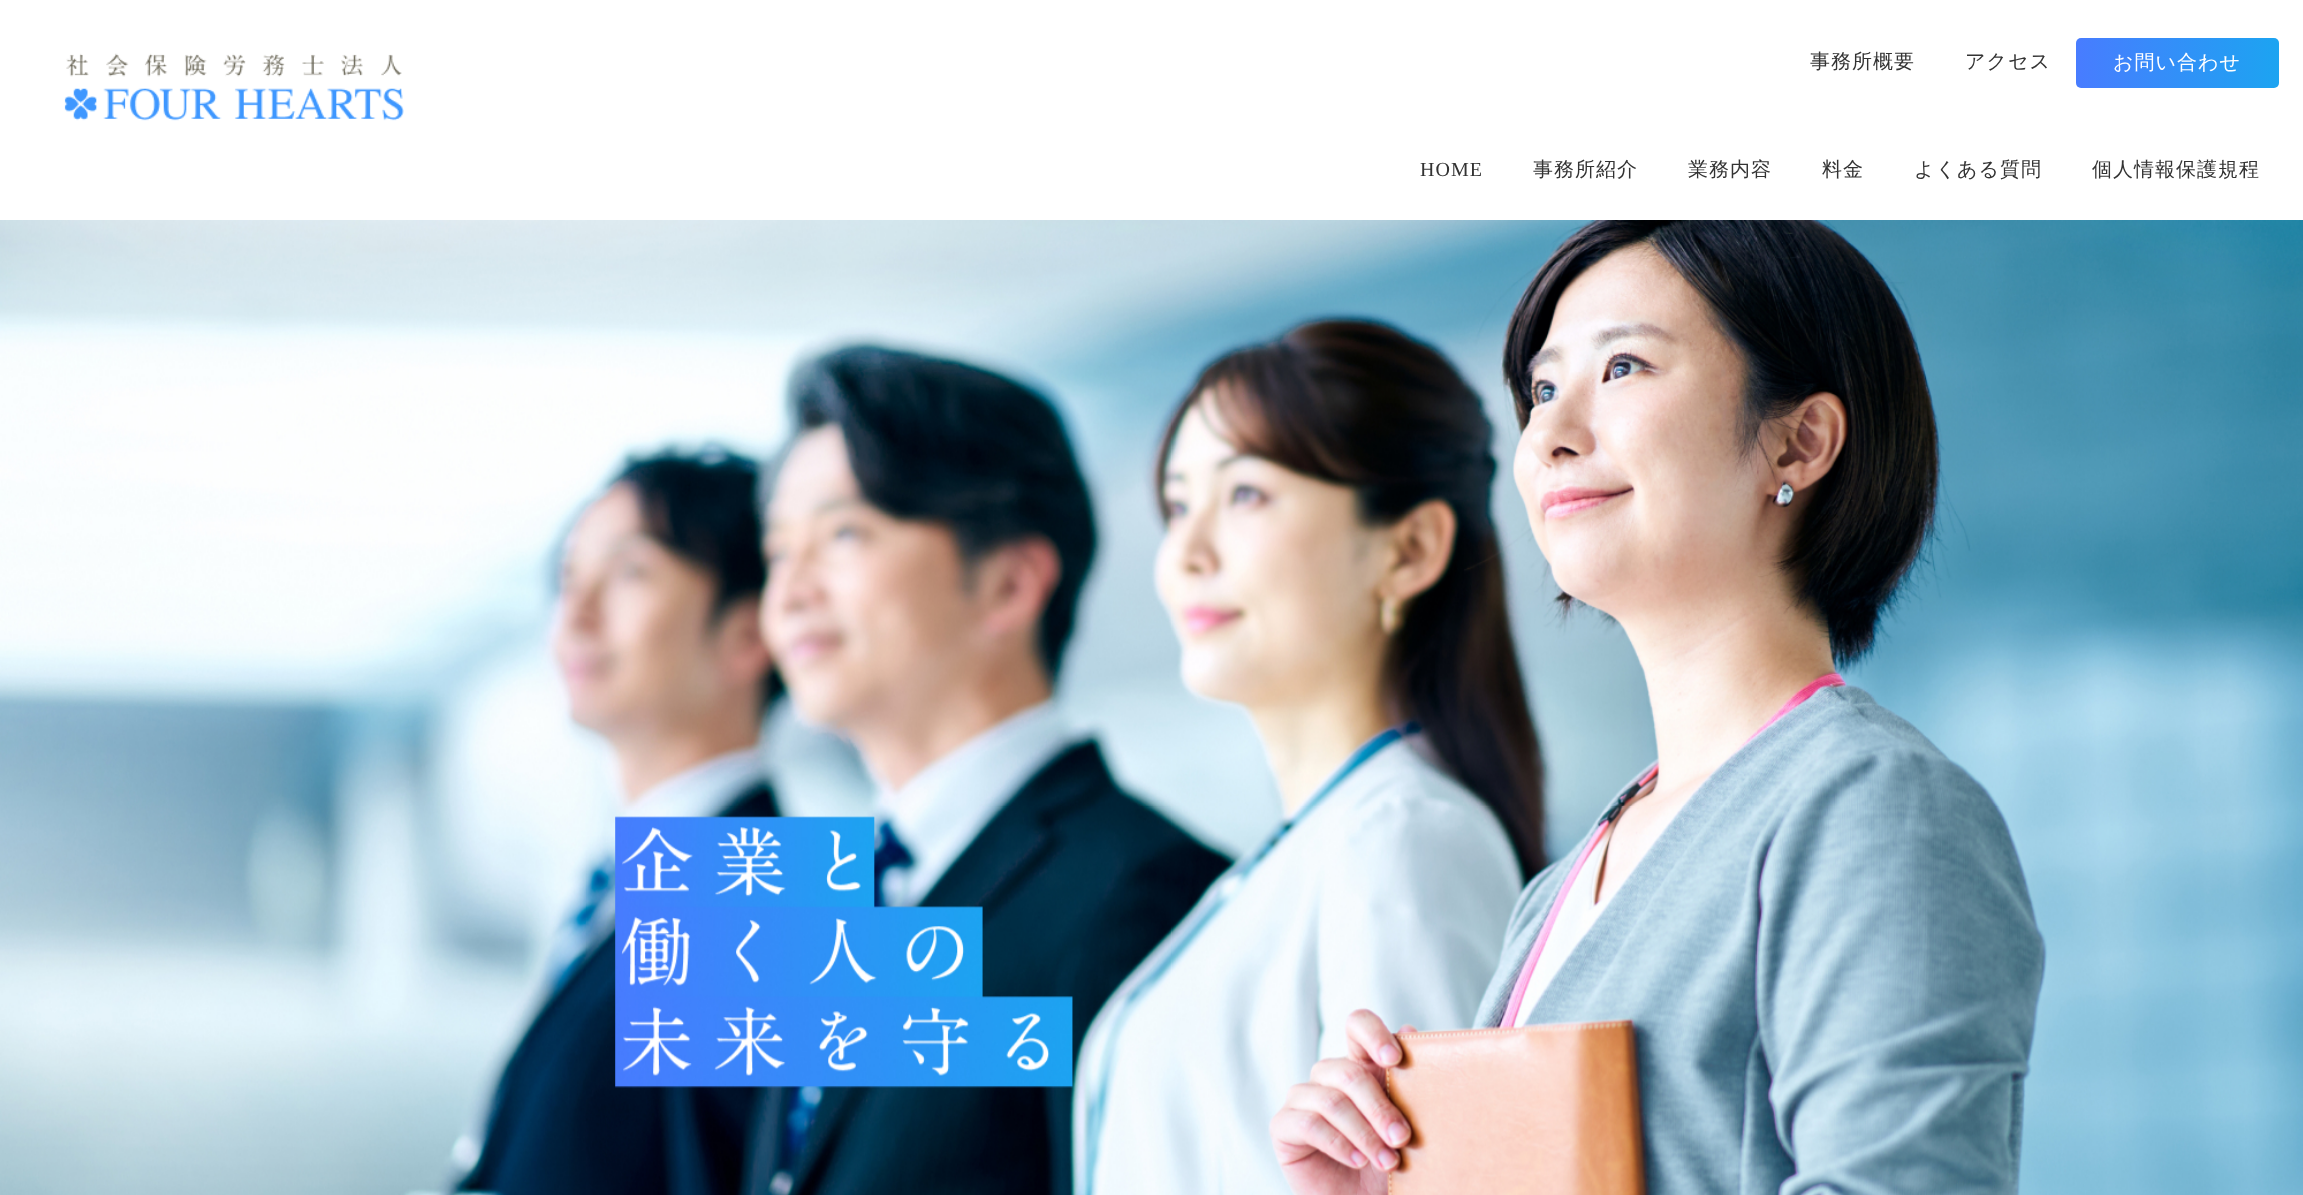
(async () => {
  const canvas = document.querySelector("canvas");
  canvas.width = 2303;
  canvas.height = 1195;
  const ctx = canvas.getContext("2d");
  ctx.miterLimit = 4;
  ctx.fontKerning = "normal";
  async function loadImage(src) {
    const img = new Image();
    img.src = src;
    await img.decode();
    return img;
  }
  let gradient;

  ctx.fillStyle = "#ffffff";
  ctx.fillRect(0, 0, 2303, 1195);
  ctx.drawImage(await loadImage("img/1.png"), 64, 53, 340, 68);
  gradient = ctx.createLinearGradient(2076, 63, 2279, 62);
  gradient.addColorStop(0, "#487cff");
  gradient.addColorStop(1, "#1ca4f1");
  ctx.fillStyle = gradient;
  ctx.beginPath();
  ctx.roundRect(2076, 38, 203, 50, 5);
  ctx.fill();
  ctx.drawImage(await loadImage("img/2.png"), 0, 220, 2303, 975);
  ctx.letterSpacing = "1px";
  ctx.font = "500 20px WenQuanYi Zen Hei";
  ctx.fillStyle = "#333333";
  ctx.fillText("事務所概要", 1810, 68);
  ctx.fillText("アクセス", 1965, 68);
  ctx.fillStyle = "#ffffff";
  ctx.fillText("お問い合わせ", 2113, 69);
  ctx.font = "20px Liberation Serif";
  ctx.fillStyle = "#333333";
  ctx.fillText("HOME", 1420, 176);
  ctx.font = "500 20px WenQuanYi Zen Hei";
  for (const [text, x, y] of [
    ["事務所紹介", 1533, 176],
    ["業務内容", 1688, 176],
    ["料金", 1822, 176],
    ["よくある質問", 1914, 176],
    ["個人情報保護規程", 2092, 176],
  ]) {
    ctx.fillText(text, x, y);
  }
})();
